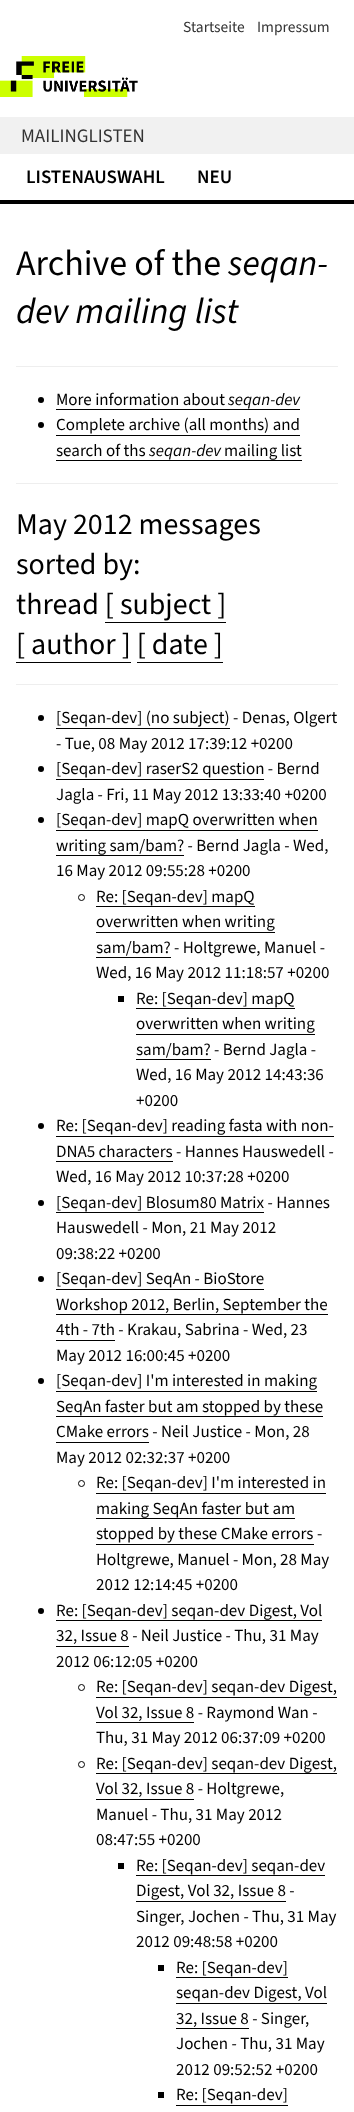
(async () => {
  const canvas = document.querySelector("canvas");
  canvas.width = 354;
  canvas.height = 2112;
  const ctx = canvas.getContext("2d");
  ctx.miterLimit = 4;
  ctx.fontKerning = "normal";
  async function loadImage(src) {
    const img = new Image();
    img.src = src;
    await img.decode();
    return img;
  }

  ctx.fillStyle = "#ffffff";
  ctx.fillRect(0, 0, 354, 2112);
  ctx.drawImage(await loadImage("img/1.png"), 0, 56, 138, 41);
  for (const [x, y, w, h, color] of [
    [0, 117, 354, 37, "#f1f1f1"],
    [0, 200, 354, 4, "#000000"],
    [16, 366, 322, 1, "#eeeeee"],
  ]) {
    ctx.fillStyle = color;
    ctx.fillRect(x, y, w, h);
  }
  ctx.fillStyle = "#000000";
  ctx.beginPath();
  ctx.arc(41, 400, 3, 0, Math.PI * 2);
  ctx.fill();
  ctx.fillRect(56, 409, 244, 1);
  ctx.beginPath();
  ctx.arc(41, 425, 3, 0, Math.PI * 2);
  ctx.fill();
  for (const [x, y, w, h, color] of [
    [56, 435, 244, 1, "#000000"],
    [56, 460, 246, 1, "#000000"],
    [16, 483, 322, 1, "#eeeeee"],
    [105, 622, 121, 1, "#000000"],
    [16, 662, 115, 1, "#000000"],
    [137, 662, 86, 1, "#000000"],
    [16, 684, 322, 1, "#eeeeee"],
  ]) {
    ctx.fillStyle = color;
    ctx.fillRect(x, y, w, h);
  }
  ctx.fillStyle = "#000000";
  ctx.beginPath();
  ctx.arc(41, 718, 3, 0, Math.PI * 2);
  ctx.fill();
  ctx.fillRect(56, 728, 174, 1);
  ctx.beginPath();
  ctx.arc(41, 769, 3, 0, Math.PI * 2);
  ctx.fill();
  ctx.fillRect(56, 779, 208, 1);
  ctx.beginPath();
  ctx.arc(41, 820, 3, 0, Math.PI * 2);
  ctx.fill();
  ctx.fillRect(56, 830, 262, 1);
  ctx.fillRect(56, 855, 128, 1);
  ctx.beginPath();
  ctx.arc(81.5, 897.5, 3, 0, Math.PI * 2);
  ctx.strokeStyle = "#000000";
  ctx.stroke();
  for (const [x, y, w, h, color] of [
    [96, 906, 159, 1, "#000000"],
    [96, 932, 179, 1, "#000000"],
    [96, 957, 75, 1, "#000000"],
    [118, 996, 6, 6, "#000000"],
    [136, 1008, 159, 1, "#000000"],
    [136, 1034, 179, 1, "#000000"],
    [136, 1059, 75, 1, "#000000"],
  ]) {
    ctx.fillStyle = color;
    ctx.fillRect(x, y, w, h);
  }
  ctx.beginPath();
  ctx.arc(41, 1126, 3, 0, Math.PI * 2);
  ctx.fill();
  ctx.fillRect(56, 1136, 278, 1);
  ctx.fillRect(56, 1161, 117, 1);
  ctx.beginPath();
  ctx.arc(41, 1203, 3, 0, Math.PI * 2);
  ctx.fill();
  ctx.fillRect(56, 1212, 208, 1);
  ctx.beginPath();
  ctx.arc(41, 1279, 3, 0, Math.PI * 2);
  ctx.fill();
  for (const [x, y, w, h, color] of [
    [56, 1289, 208, 1, "#000000"],
    [56, 1314, 272, 1, "#000000"],
    [56, 1340, 59, 1, "#000000"],
  ]) {
    ctx.fillStyle = color;
    ctx.fillRect(x, y, w, h);
  }
  ctx.beginPath();
  ctx.arc(41, 1381, 3, 0, Math.PI * 2);
  ctx.fill();
  for (const [x, y, w, h, color] of [
    [56, 1391, 261, 1, "#000000"],
    [56, 1416, 267, 1, "#000000"],
    [56, 1442, 93, 1, "#000000"],
  ]) {
    ctx.fillStyle = color;
    ctx.fillRect(x, y, w, h);
  }
  ctx.beginPath();
  ctx.arc(81.5, 1483.5, 3, 0, Math.PI * 2);
  ctx.stroke();
  for (const [x, y, w, h, color] of [
    [96, 1493, 230, 1, "#000000"],
    [96, 1518, 199, 1, "#000000"],
    [96, 1544, 218, 1, "#000000"],
  ]) {
    ctx.fillStyle = color;
    ctx.fillRect(x, y, w, h);
  }
  ctx.beginPath();
  ctx.arc(41, 1611, 3, 0, Math.PI * 2);
  ctx.fill();
  ctx.fillRect(56, 1620, 266, 1);
  ctx.fillRect(56, 1646, 73, 1);
  ctx.beginPath();
  ctx.arc(81.5, 1687.5, 3, 0, Math.PI * 2);
  ctx.stroke();
  ctx.fillRect(96, 1697, 241, 1);
  ctx.fillRect(96, 1722, 98, 1);
  ctx.beginPath();
  ctx.arc(81.5, 1764.5, 3, 0, Math.PI * 2);
  ctx.stroke();
  for (const [x, y, w, h, color] of [
    [96, 1773, 241, 1, "#000000"],
    [96, 1799, 98, 1, "#000000"],
    [118, 1863, 6, 6, "#000000"],
    [136, 1875, 189, 1, "#000000"],
    [136, 1901, 150, 1, "#000000"],
    [158, 1965, 6, 6, "#000000"],
    [176, 1977, 112, 1, "#000000"],
    [176, 2003, 151, 1, "#000000"],
    [176, 2028, 73, 1, "#000000"],
    [158, 2092, 6, 6, "#000000"],
    [176, 2105, 112, 1, "#000000"],
  ]) {
    ctx.fillStyle = color;
    ctx.fillRect(x, y, w, h);
  }
  ctx.font = "15.5px 'Source Sans 3'";
  ctx.fillStyle = "#333333";
  ctx.fillText("Startseite", 183, 32);
  ctx.fillText("Impressum", 257, 32);
  ctx.font = "19px 'Source Sans 3'";
  ctx.fillText("MAILINGLISTEN", 21, 142);
  ctx.font = "600 19px 'Source Sans 3'";
  ctx.fillStyle = "#000000";
  ctx.fillText("LISTENAUSWAHL", 26, 183);
  ctx.fillText("NEU", 197, 183);
  ctx.font = "36px 'Source Sans 3'";
  ctx.fillText("Archive of the", 16, 275);
  ctx.font = "italic 36px 'Source Sans 3'";
  ctx.fillText("seqan-", 228, 275);
  ctx.fillText("dev mailing list", 16, 323);
  ctx.font = "17px 'Source Sans 3'";
  ctx.fillText("More information about", 56, 405);
  ctx.font = "italic 17px 'Source Sans 3'";
  ctx.fillText("seqan-dev", 228, 405);
  ctx.font = "17px 'Source Sans 3'";
  ctx.fillText("Complete archive (all months) and", 56, 430);
  ctx.fillText("search of ths", 56, 456);
  ctx.font = "italic 17px 'Source Sans 3'";
  ctx.fillText("seqan-dev", 149, 456);
  ctx.font = "17px 'Source Sans 3'";
  ctx.fillText("mailing list", 224, 456);
  ctx.font = "30px 'Source Sans 3'";
  for (const [text, x, y] of [
    ["May 2012 messages", 16, 534],
    ["sorted by:", 16, 574],
    ["thread [ subject ]", 16, 614],
    ["[ author ] [ date ]", 16, 654],
  ]) {
    ctx.fillText(text, x, y);
  }
  ctx.font = "17px 'Source Sans 3'";
  for (const [text, x, y] of [
    ["[Seqan-dev] (no subject) - Denas, Olgert", 56, 723],
    ["- Tue, 08 May 2012 17:39:12 +0200", 56, 749],
    ["[Seqan-dev] raserS2 question - Bernd", 56, 774],
    ["Jagla - Fri, 11 May 2012 13:33:40 +0200", 56, 800],
    ["[Seqan-dev] mapQ overwritten when", 56, 825],
    ["writing sam/bam? - Bernd Jagla - Wed,", 56, 851],
    ["16 May 2012 09:55:28 +0200", 56, 876],
    ["Re: [Seqan-dev] mapQ", 96, 902],
    ["overwritten when writing", 96, 927],
    ["sam/bam? - Holtgrewe, Manuel -", 96, 953],
    ["Wed, 16 May 2012 11:18:57 +0200", 96, 978],
    ["Re: [Seqan-dev] mapQ", 136, 1004],
    ["overwritten when writing", 136, 1029],
    ["sam/bam? - Bernd Jagla -", 136, 1055],
    ["Wed, 16 May 2012 14:43:36", 136, 1080],
    ["+0200", 136, 1106],
    ["Re: [Seqan-dev] reading fasta with non-", 56, 1131],
    ["DNA5 characters - Hannes Hauswedell -", 56, 1157],
    ["Wed, 16 May 2012 10:37:28 +0200", 56, 1182],
    ["[Seqan-dev] Blosum80 Matrix - Hannes", 56, 1208],
    ["Hauswedell - Mon, 21 May 2012", 56, 1233],
    ["09:38:22 +0200", 56, 1259],
    ["[Seqan-dev] SeqAn - BioStore", 56, 1284],
    ["Workshop 2012, Berlin, September the", 56, 1310],
    ["4th - 7th - Krakau, Sabrina - Wed, 23", 56, 1335],
    ["May 2012 16:00:45 +0200", 56, 1361],
    ["[Seqan-dev] I'm interested in making", 56, 1386],
    ["SeqAn faster but am stopped by these", 56, 1412],
    ["CMake errors - Neil Justice - Mon, 28", 56, 1437],
    ["May 2012 02:32:37 +0200", 56, 1463],
    ["Re: [Seqan-dev] I'm interested in", 96, 1488],
    ["making SeqAn faster but am", 96, 1514],
    ["stopped by these CMake errors -", 96, 1539],
    ["Holtgrewe, Manuel - Mon, 28 May", 96, 1565],
    ["2012 12:14:45 +0200", 96, 1590],
    ["Re: [Seqan-dev] seqan-dev Digest, Vol", 56, 1616],
    ["32, Issue 8 - Neil Justice - Thu, 31 May", 56, 1641],
    ["2012 06:12:05 +0200", 56, 1667],
    ["Re: [Seqan-dev] seqan-dev Digest,", 96, 1692],
    ["Vol 32, Issue 8 - Raymond Wan -", 96, 1718],
    ["Thu, 31 May 2012 06:37:09 +0200", 96, 1743],
    ["Re: [Seqan-dev] seqan-dev Digest,", 96, 1769],
    ["Vol 32, Issue 8 - Holtgrewe,", 96, 1794],
    ["Manuel - Thu, 31 May 2012", 96, 1820],
    ["08:47:55 +0200", 96, 1845],
    ["Re: [Seqan-dev] seqan-dev", 136, 1871],
    ["Digest, Vol 32, Issue 8 -", 136, 1896],
    ["Singer, Jochen - Thu, 31 May", 136, 1922],
    ["2012 09:48:58 +0200", 136, 1947],
    ["Re: [Seqan-dev]", 176, 1973],
    ["seqan-dev Digest, Vol", 176, 1998],
    ["32, Issue 8 - Singer,", 176, 2024],
    ["Jochen - Thu, 31 May", 176, 2049],
    ["2012 09:52:52 +0200", 176, 2075],
    ["Re: [Seqan-dev]", 176, 2100],
  ]) {
    ctx.fillText(text, x, y);
  }
})();
